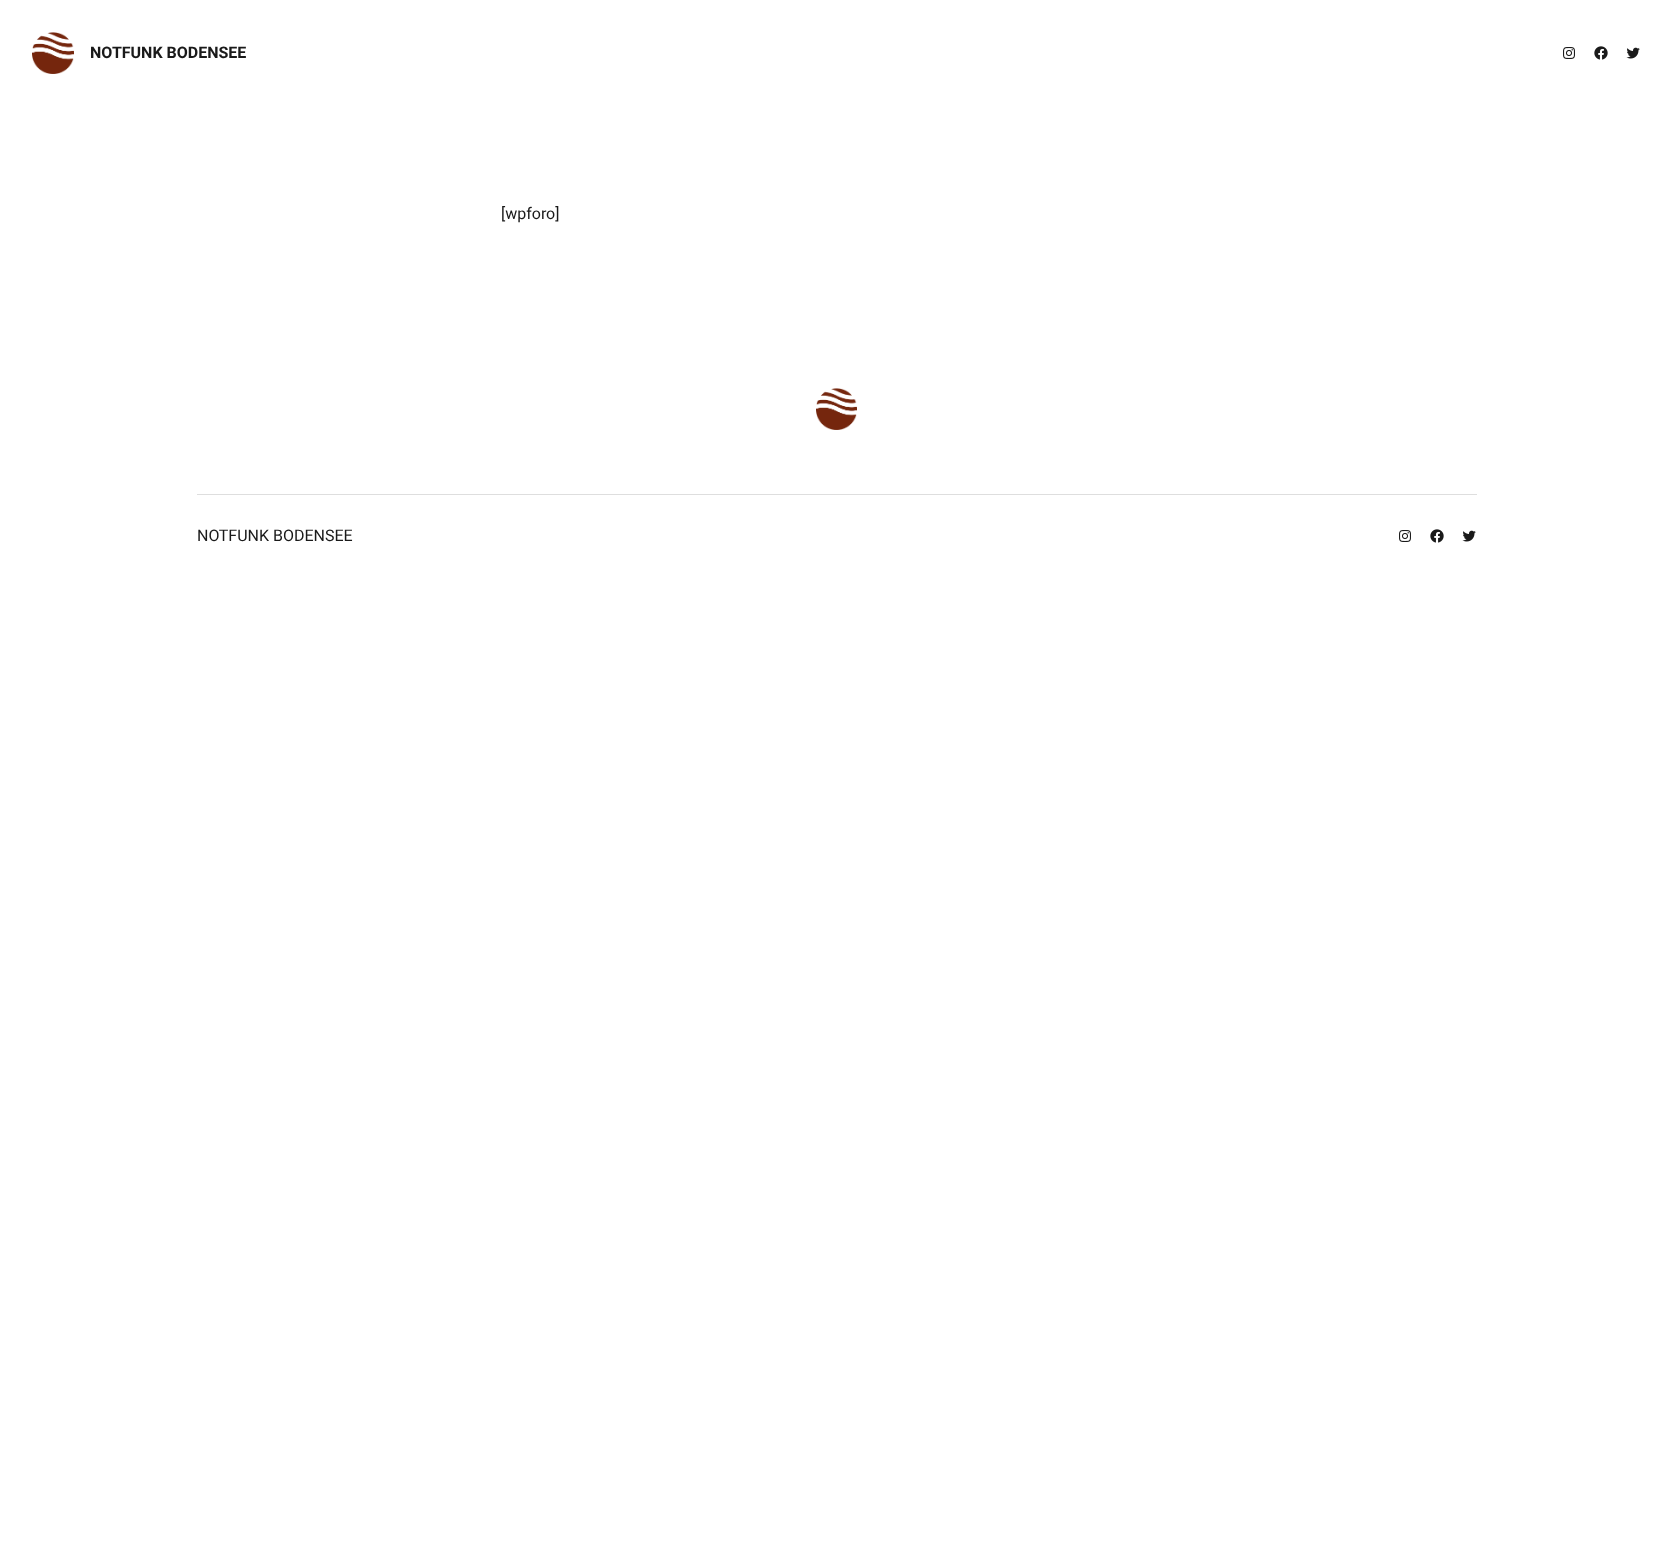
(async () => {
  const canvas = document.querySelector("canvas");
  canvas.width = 1673;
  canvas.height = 1560;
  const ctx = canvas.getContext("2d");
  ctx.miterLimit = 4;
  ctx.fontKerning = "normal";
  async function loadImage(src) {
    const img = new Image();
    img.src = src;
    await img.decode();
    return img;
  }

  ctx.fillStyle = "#ffffff";
  ctx.fillRect(0, 0, 1673, 1560);
  ctx.drawImage(await loadImage("img/1.png"), 32, 32, 42, 42);
  ctx.drawImage(await loadImage("img/2.png"), 1563, 47, 12, 12);
  ctx.drawImage(await loadImage("img/3.png"), 1594, 46, 14, 14);
  ctx.drawImage(await loadImage("img/4.png"), 1626, 47, 14, 12);
  ctx.drawImage(await loadImage("img/5.png"), 816, 388, 41, 42);
  ctx.fillStyle = "#dedede";
  ctx.fillRect(197, 494, 1280, 1);
  ctx.drawImage(await loadImage("img/2.png"), 1399, 530, 12, 12);
  ctx.drawImage(await loadImage("img/3.png"), 1430, 529, 14, 14);
  ctx.drawImage(await loadImage("img/4.png"), 1462, 530, 14, 12);
  ctx.font = "bold 16px Heebo";
  ctx.fillStyle = "#1a1a1a";
  ctx.fillText("NOTFUNK BODENSEE", 90, 58);
  ctx.font = "16px Heebo";
  ctx.fillText("[wpforo]", 501, 219);
  ctx.fillText("NOTFUNK BODENSEE", 197, 541);
})();
